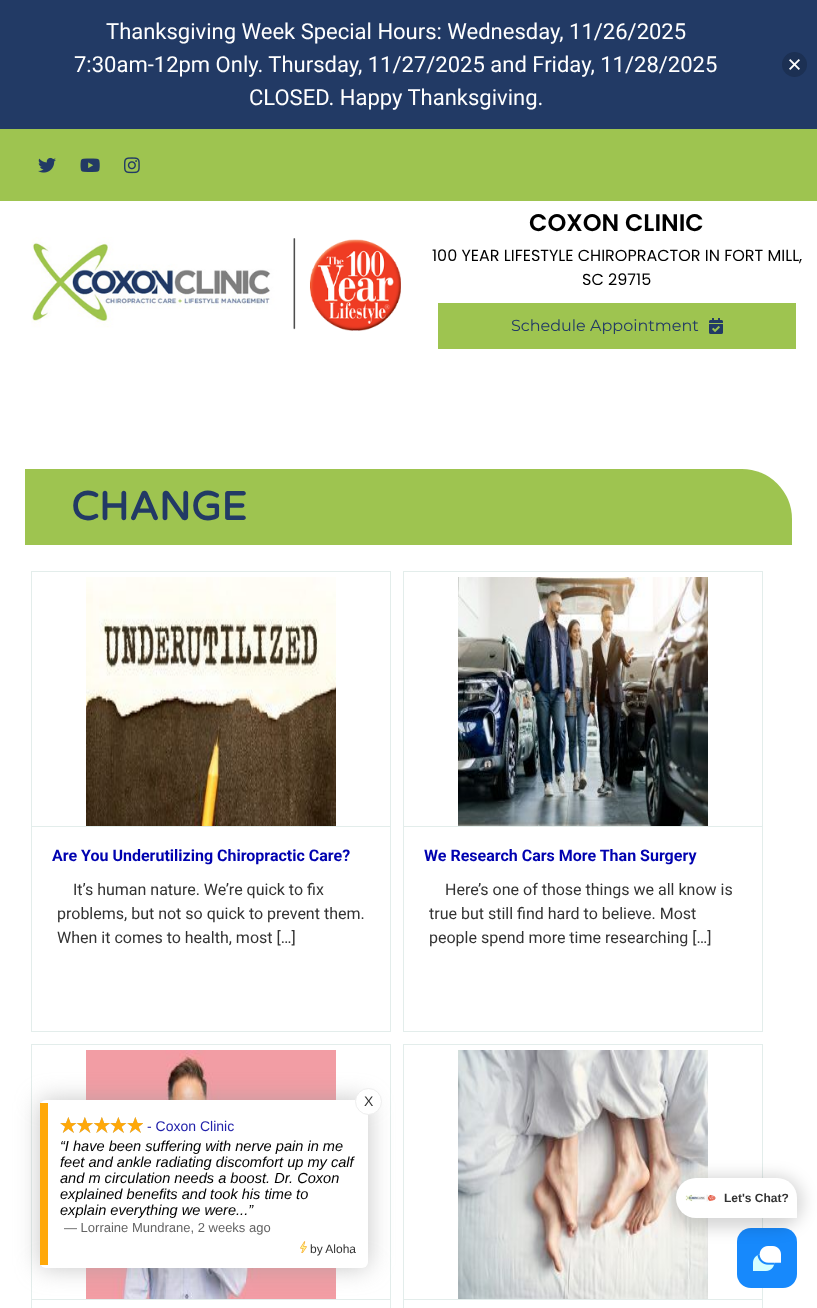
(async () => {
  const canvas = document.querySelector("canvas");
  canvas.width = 817;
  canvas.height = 1308;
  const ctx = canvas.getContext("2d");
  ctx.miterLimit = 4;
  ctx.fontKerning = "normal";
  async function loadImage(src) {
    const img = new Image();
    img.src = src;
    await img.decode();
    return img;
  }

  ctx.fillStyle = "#ffffff";
  ctx.fillRect(0, 0, 817, 1308);
  ctx.fillStyle = "#223a65";
  ctx.fillRect(0, 0, 817, 129);
  ctx.fillStyle = "#1c3053";
  ctx.beginPath();
  ctx.arc(794.5, 64.5, 12.5, 0, Math.PI * 2);
  ctx.fill();
  ctx.drawImage(await loadImage("img/1.png"), 789, 59, 11, 11);
  ctx.fillStyle = "#9ec450";
  ctx.fillRect(0, 129, 817, 72);
  ctx.drawImage(await loadImage("img/2.png"), 38, 157, 18, 16);
  ctx.drawImage(await loadImage("img/3.png"), 80, 158, 20, 14);
  ctx.drawImage(await loadImage("img/4.png"), 124, 157, 16, 17);
  ctx.drawImage(await loadImage("img/5.png"), 31, 237, 370, 94);
  ctx.fillRect(438, 303, 358, 46);
  ctx.drawImage(await loadImage("img/6.png"), 709, 318, 14, 16);
  ctx.beginPath();
  ctx.roundRect(25, 469, 767, 76, [0, 50, 0, 0]);
  ctx.fill();
  ctx.strokeStyle = "#e3edeb";
  ctx.strokeRect(31.5, 571.5, 359, 460);
  ctx.fillStyle = "#e3edeb";
  ctx.fillRect(32, 826, 358, 1);
  ctx.drawImage(await loadImage("img/7.png"), 86, 577, 250, 249);
  ctx.strokeRect(403.5, 571.5, 359, 460);
  ctx.fillRect(404, 826, 358, 1);
  ctx.drawImage(await loadImage("img/8.png"), 458, 577, 250, 249);
  ctx.strokeRect(31.5, 1044.5, 359, 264);
  ctx.fillRect(32, 1299, 358, 1);
  ctx.drawImage(await loadImage("img/9.png"), 86, 1050, 250, 249);
  ctx.strokeRect(403.5, 1044.5, 359, 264);
  ctx.fillRect(404, 1299, 358, 1);
  ctx.drawImage(await loadImage("img/10.png"), 458, 1050, 250, 249);
  ctx.fillStyle = "rgba(160, 160, 160, 0.6)";
  ctx.filter = "blur(12px)";
  ctx.beginPath();
  ctx.roundRect(40, 1100, 328, 168, 6);
  ctx.fill();
  ctx.filter = "none";
  ctx.fillStyle = "#ffffff";
  ctx.beginPath();
  ctx.roundRect(40, 1100, 328, 168, 6);
  ctx.fill();
  ctx.fillStyle = "#ffa808";
  ctx.fillRect(40, 1103, 8, 162);
  ctx.fillStyle = "#ffffff";
  ctx.beginPath();
  ctx.arc(368.5, 1101.5, 13, 0, Math.PI * 2);
  ctx.fill();
  ctx.strokeStyle = "#eeeeee";
  ctx.stroke();
  ctx.drawImage(await loadImage("img/11.png"), 60, 1117, 83, 16);
  ctx.drawImage(await loadImage("img/12.png"), 60, 1117, 83, 16);
  ctx.drawImage(await loadImage("img/13.png"), 300, 1241, 7, 12);
  ctx.fillStyle = "#1789fc";
  ctx.beginPath();
  ctx.roundRect(737, 1228, 60, 60, 14);
  ctx.fill();
  ctx.drawImage(await loadImage("img/15.png"), 753, 1246, 28, 25);
  ctx.fillStyle = "rgba(0, 0, 0, 0.16)";
  ctx.filter = "blur(8px)";
  ctx.beginPath();
  ctx.roundRect(670, 1176, 133, 52, 26);
  ctx.fill();
  ctx.filter = "none";
  ctx.fillStyle = "#ffffff";
  ctx.beginPath();
  ctx.roundRect(676, 1178, 121, 40, [20, 20, 0, 20]);
  ctx.fill();
  ctx.drawImage(await loadImage("img/14.png"), 685, 1194, 31, 8);
  ctx.font = "22px Roboto";
  for (const [text, x, y] of [
    ["Thanksgiving Week Special Hours: Wednesday, 11/26/2025", 106, 39],
    ["7:30am-12pm Only. Thursday, 11/27/2025 and Friday, 11/28/2025", 74, 72],
    ["CLOSED. Happy Thanksgiving.", 249, 105],
  ]) {
    ctx.fillText(text, x, y);
  }
  ctx.font = "600 24px Poppins";
  ctx.fillStyle = "#000000";
  ctx.fillText("COXON CLINIC", 529, 231);
  ctx.font = "16px Poppins";
  ctx.fillText("100 YEAR LIFESTYLE CHIROPRACTOR IN FORT MILL,", 432, 261);
  ctx.fillText("SC 29715", 582, 285);
  ctx.font = "16px Montserrat";
  ctx.fillStyle = "#223a65";
  ctx.fillText("Schedule Appointment", 511, 331);
  ctx.font = "bold 40px Varela Round";
  ctx.fillText("CHANGE", 71, 520);
  ctx.font = "bold 16px Roboto";
  ctx.fillStyle = "#0002b0";
  ctx.fillText("Are You Underutilizing Chiropractic Care?", 52, 861);
  ctx.font = "16px Roboto";
  ctx.fillStyle = "#333333";
  for (const [text, x, y] of [
    ["It’s human nature. We’re quick to fix", 73, 895],
    ["problems, but not so quick to prevent them.", 57, 919],
    ["When it comes to health, most […]", 57, 943],
  ]) {
    ctx.fillText(text, x, y);
  }
  ctx.font = "bold 16px Roboto";
  ctx.fillStyle = "#0002b0";
  ctx.fillText("We Research Cars More Than Surgery", 424, 861);
  ctx.font = "16px Roboto";
  ctx.fillStyle = "#333333";
  for (const [text, x, y] of [
    ["Here’s one of those things we all know is", 445, 895],
    ["true but still find hard to believe. Most", 429, 919],
    ["people spend more time researching […]", 429, 943],
  ]) {
    ctx.fillText(text, x, y);
  }
  ctx.font = "14px Liberation Sans";
  ctx.fillText("X", 364, 1106);
  ctx.fillStyle = "#2020aa";
  ctx.fillText("- Coxon Clinic", 147, 1131);
  ctx.font = "italic 14.6px Liberation Sans";
  ctx.fillStyle = "#000000";
  for (const [text, x, y] of [
    ["“I have been suffering with nerve pain in me", 60, 1151],
    ["feet and ankle radiating discomfort up my calf", 60, 1167],
    ["and m circulation needs a boost. Dr. Coxon", 60, 1183],
    ["explained benefits and took his time to", 60, 1199],
    ["explain everything we were...”", 60, 1215],
  ]) {
    ctx.fillText(text, x, y);
  }
  ctx.font = "13px Liberation Sans";
  ctx.fillStyle = "#646464";
  ctx.fillText("— Lorraine Mundrane, 2 weeks ago", 64, 1232);
  ctx.font = "12px Liberation Sans";
  ctx.fillStyle = "#333333";
  ctx.fillText("by Aloha", 310, 1253);
  ctx.font = "bold 12px Liberation Sans";
  ctx.fillText("Let's Chat?", 724, 1202);
})();
